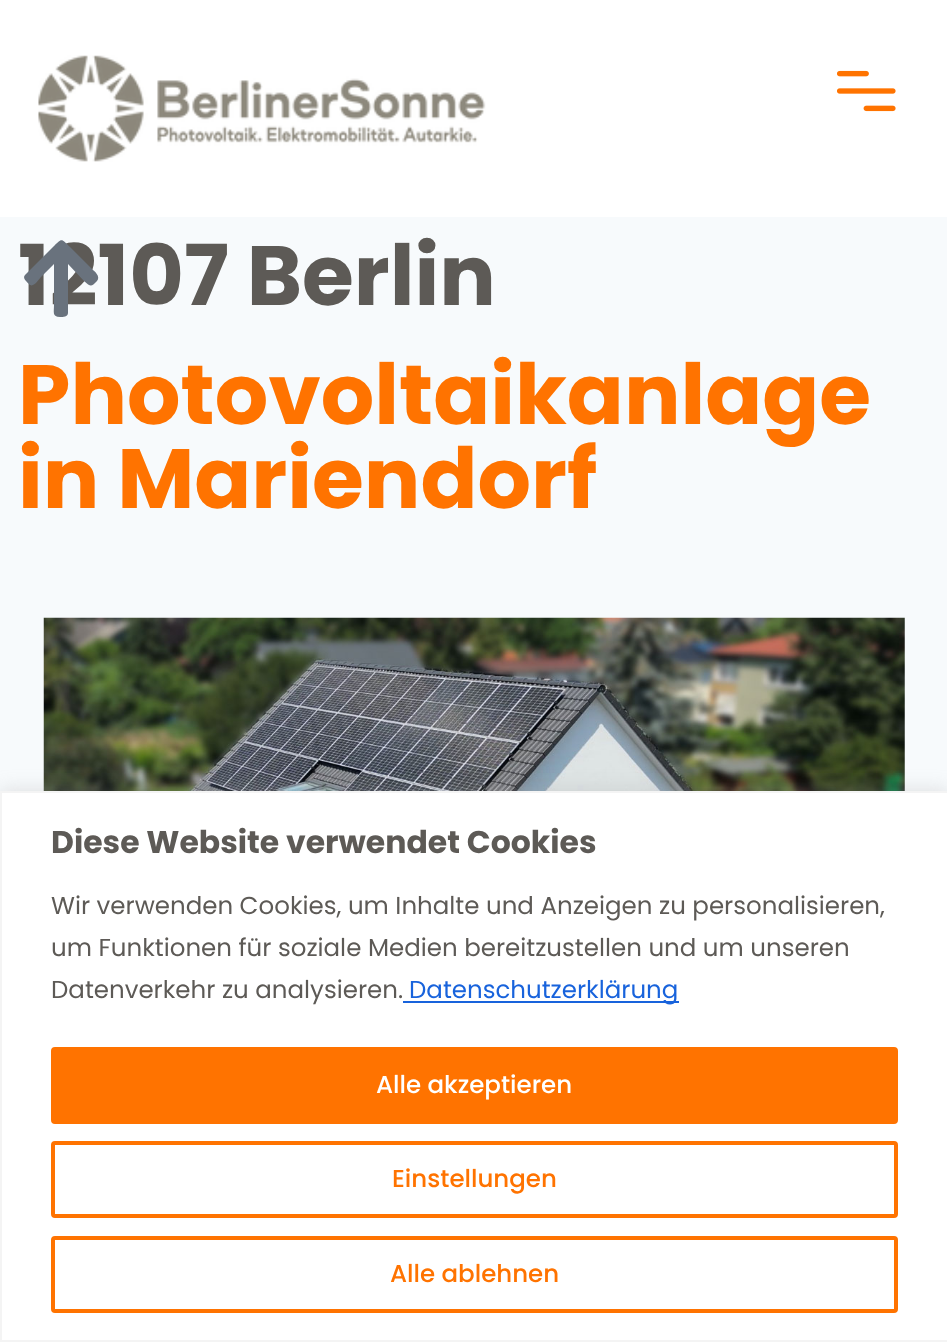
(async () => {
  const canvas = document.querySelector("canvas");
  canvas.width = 947;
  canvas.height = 1342;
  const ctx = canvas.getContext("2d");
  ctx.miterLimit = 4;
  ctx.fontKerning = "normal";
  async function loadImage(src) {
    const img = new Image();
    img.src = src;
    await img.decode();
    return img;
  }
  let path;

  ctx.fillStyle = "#f7fafc";
  ctx.fillRect(0, 0, 947, 1342);
  ctx.fillStyle = "#ffffff";
  ctx.fillRect(0, 0, 947, 217);
  ctx.drawImage(await loadImage("img/1.png"), 38, 55, 448, 107);
  ctx.drawImage(await loadImage("img/2.png"), 837, 70, 59, 42);
  ctx.drawImage(await loadImage("img/3.png"), 43, 617, 862, 174);
  ctx.fillStyle = "rgba(172, 171, 171, 0.3)";
  ctx.filter = "blur(9px)";
  ctx.beginPath();
  ctx.rect(0, 789, 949, 552);
  ctx.fill();
  ctx.filter = "none";
  ctx.fillStyle = "#ffffff";
  ctx.beginPath();
  ctx.rect(1, 792, 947, 549);
  ctx.fill();
  ctx.strokeStyle = "#f4f4f4";
  ctx.lineWidth = 2;
  ctx.stroke();
  ctx.fillStyle = "#1863dc";
  ctx.fillRect(403, 1001, 276, 2);
  ctx.fillStyle = "#ff7300";
  ctx.beginPath();
  ctx.roundRect(53, 1049, 843, 73, 2);
  ctx.fill();
  ctx.strokeStyle = "#ff7300";
  ctx.lineWidth = 4;
  ctx.stroke();
  ctx.beginPath();
  ctx.roundRect(53, 1143, 843, 73, 2);
  ctx.stroke();
  ctx.beginPath();
  ctx.roundRect(53, 1238, 843, 73, 2);
  ctx.stroke();
  ctx.font = "bold 84px Poppins";
  ctx.fillStyle = "#5d5a56";
  ctx.fillText("12107 Berlin", 18, 305);
  ctx.fillStyle = "#69727d";
  path = new Path2D("M29 284C27 282 22 278 25 275L53 247C62 238 61 238 70 247L92 269C94 271 101 276 97 281C91 287 91 287 84 281L68 264V313C68 317 63 317 60 317C52 317 54 312 54 305V264L41 277C39 279 33 289 29 284Z");
  ctx.fill(path);
  ctx.fillStyle = "#ff7300";
  ctx.fillText("Photovoltaikanlage", 18, 424);
  ctx.fillText("in Mariendorf", 18, 508);
  ctx.font = "bold 31.5px Poppins";
  ctx.fillStyle = "#5d5a56";
  ctx.fillText("Diese Website verwendet Cookies", 51, 853);
  ctx.font = "24.5px Poppins";
  for (const [text, x, y] of [
    ["Wir verwenden Cookies, um Inhalte und Anzeigen zu personalisieren,", 51, 914],
    ["um Funktionen für soziale Medien bereitzustellen und um unseren", 51, 956],
    ["Datenverkehr zu analysieren.", 51, 998],
  ]) {
    ctx.fillText(text, x, y);
  }
  ctx.fillStyle = "#1863dc";
  ctx.fillText("Datenschutzerklärung", 409, 998);
  ctx.font = "500 24.5px Poppins";
  ctx.fillStyle = "#ffffff";
  ctx.fillText("Alle akzeptieren", 376, 1093);
  ctx.fillStyle = "#ff7300";
  ctx.fillText("Einstellungen", 392, 1187);
  ctx.fillText("Alle ablehnen", 390, 1282);
})();
